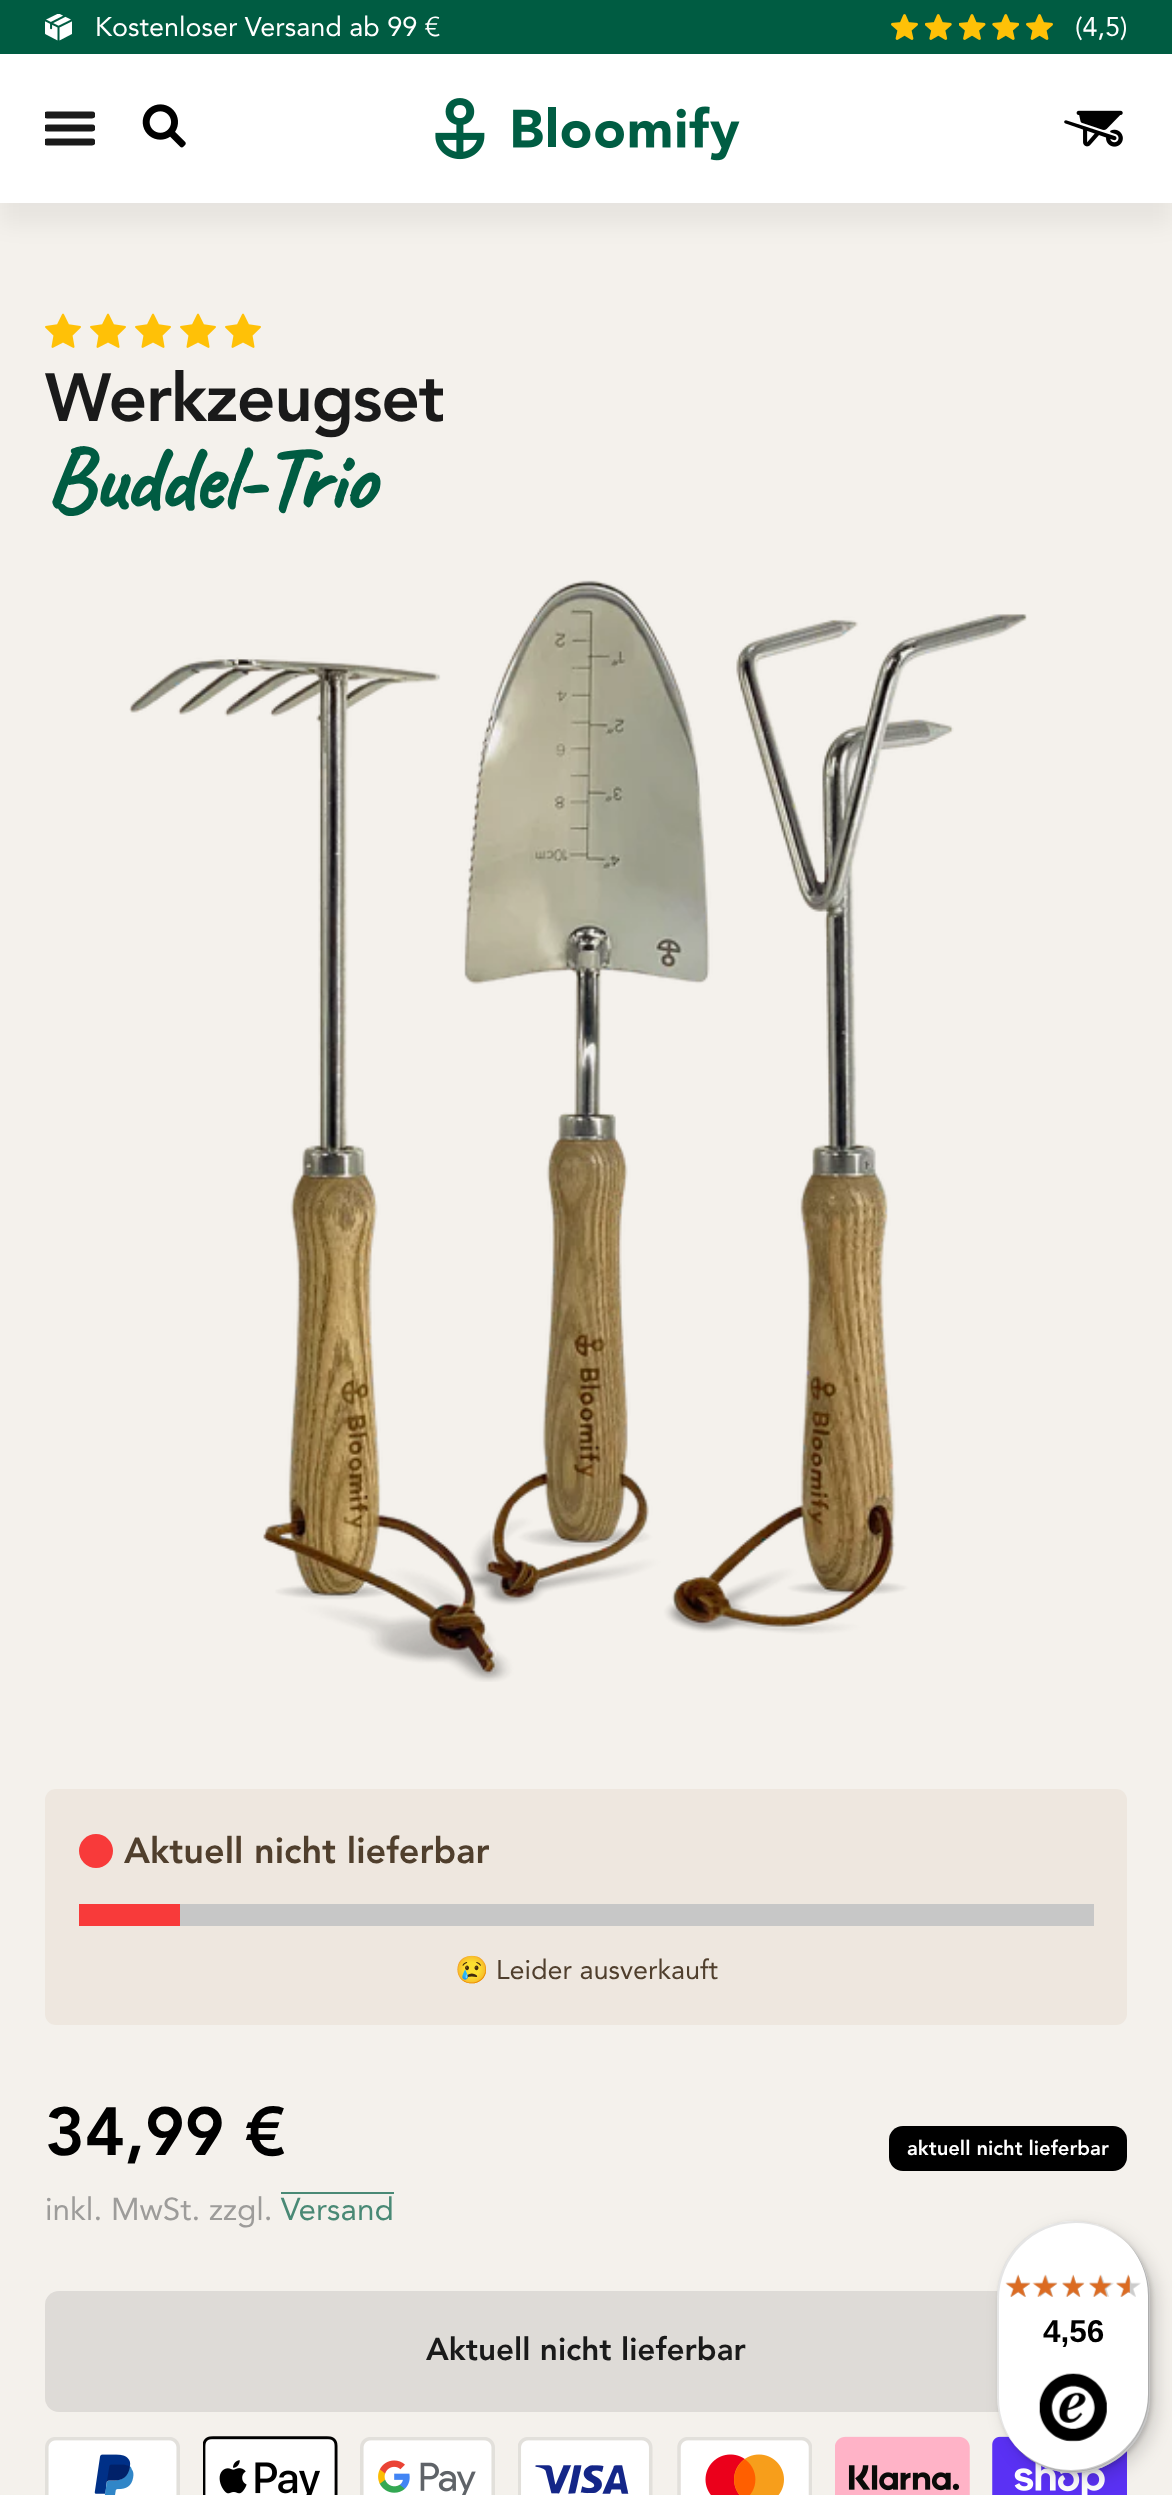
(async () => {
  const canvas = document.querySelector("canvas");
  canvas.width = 1172;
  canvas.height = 2495;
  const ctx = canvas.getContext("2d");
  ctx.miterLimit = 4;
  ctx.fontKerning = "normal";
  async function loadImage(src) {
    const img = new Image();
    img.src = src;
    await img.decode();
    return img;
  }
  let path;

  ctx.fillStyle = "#005c42";
  ctx.fillRect(0, 0, 1172, 2495);
  ctx.drawImage(await loadImage("img/1.png"), 45, 14, 27, 27);
  ctx.drawImage(await loadImage("img/2.png"), 891, 14, 27, 26);
  ctx.drawImage(await loadImage("img/3.png"), 925, 14, 27, 26);
  ctx.drawImage(await loadImage("img/4.png"), 959, 14, 27, 26);
  ctx.drawImage(await loadImage("img/5.png"), 992, 14, 27, 26);
  ctx.drawImage(await loadImage("img/2.png"), 1026, 14, 27, 26);
  ctx.fillStyle = "#f4f1ec";
  ctx.fillRect(0, 203, 1172, 2292);
  ctx.fillStyle = "rgba(0, 0, 0, 0.05)";
  ctx.filter = "blur(11px)";
  ctx.beginPath();
  ctx.rect(0, 77, 1172, 148);
  ctx.fill();
  ctx.filter = "none";
  ctx.fillStyle = "#ffffff";
  ctx.fillRect(0, 54, 1172, 149);
  ctx.save();
  ctx.beginPath();
  ctx.rect(45, 104, 50, 49);
  ctx.clip();
  path = new Path2D("M47 115H92M47 128H92M47 142H92");
  ctx.strokeStyle = "#1a1a1a";
  ctx.lineWidth = 6.8;
  ctx.lineCap = "round";
  ctx.stroke(path);
  ctx.restore();
  ctx.drawImage(await loadImage("img/6.png"), 142, 104, 44, 44);
  ctx.drawImage(await loadImage("img/7.png"), 435, 98, 305, 63);
  ctx.drawImage(await loadImage("img/8.png"), 1064, 110, 59, 37);
  ctx.drawImage(await loadImage("img/9.png"), 45, 313, 36, 35);
  ctx.drawImage(await loadImage("img/9.png"), 90, 313, 36, 35);
  ctx.drawImage(await loadImage("img/9.png"), 135, 313, 36, 35);
  ctx.drawImage(await loadImage("img/9.png"), 180, 313, 36, 35);
  ctx.drawImage(await loadImage("img/9.png"), 225, 313, 36, 35);
  ctx.drawImage(await loadImage("img/10.png"), 129, 580, 898, 1102);
  ctx.fillStyle = "#eee7df";
  ctx.beginPath();
  ctx.roundRect(45, 1789, 1082, 236, 11);
  ctx.fill();
  ctx.fillStyle = "#f83a3a";
  ctx.beginPath();
  ctx.arc(96, 1851, 17, 0, Math.PI * 2);
  ctx.fill();
  ctx.fillStyle = "#c7c7c7";
  ctx.fillRect(180, 1904, 914, 22);
  ctx.fillStyle = "#f83a3a";
  ctx.fillRect(79, 1904, 101, 22);
  ctx.fillStyle = "#000000";
  ctx.beginPath();
  ctx.roundRect(889, 2126, 238, 45, 14);
  ctx.fill();
  ctx.fillStyle = "#498975";
  ctx.fillRect(281, 2192, 113, 2);
  ctx.fillStyle = "#dedbd7";
  ctx.beginPath();
  ctx.roundRect(45, 2291, 1082, 121, 14);
  ctx.fill();
  ctx.drawImage(await loadImage("img/11.png"), 45, 2437, 135, 58);
  ctx.drawImage(await loadImage("img/12.png"), 203, 2436, 135, 59);
  ctx.drawImage(await loadImage("img/13.png"), 360, 2437, 135, 58);
  ctx.drawImage(await loadImage("img/14.png"), 518, 2437, 135, 58);
  ctx.drawImage(await loadImage("img/15.png"), 677, 2437, 135, 58);
  ctx.drawImage(await loadImage("img/16.png"), 835, 2436, 135, 59);
  ctx.drawImage(await loadImage("img/17.png"), 992, 2436, 135, 59);
  ctx.fillStyle = "rgba(0, 0, 0, 0.15)";
  ctx.filter = "blur(9px)";
  ctx.beginPath();
  ctx.roundRect(1004, 2228, 153, 252, 76.5);
  ctx.fill();
  ctx.filter = "none";
  ctx.filter = "blur(2px)";
  ctx.beginPath();
  ctx.roundRect(999, 2223, 153, 252, 76.5);
  ctx.fill();
  ctx.filter = "none";
  ctx.fillStyle = "#ffffff";
  ctx.beginPath();
  ctx.roundRect(997, 2221, 153, 252, 76.5);
  ctx.fill();
  ctx.fillStyle = "rgba(0, 0, 0, 0.1)";
  path = new Path2D("M1076 2223C1095 2223 1112 2230 1126 2242C1112 2229 1094 2221 1074 2221C1031 2221 997 2255 997 2298V2396C997 2418 1006 2437 1020 2451C1007 2437 999 2419 999 2398V2300C999 2257 1033 2223 1076 2223Z");
  ctx.fill(path);
  ctx.fillStyle = "rgba(0, 0, 0, 0.2)";
  path = new Path2D("M1016 2447C1030 2463 1051 2473 1074 2473C1116 2473 1150 2439 1150 2396V2298C1150 2278 1142 2259 1130 2246C1141 2259 1148 2276 1148 2295V2394C1148 2436 1113 2470 1071 2470C1050 2470 1030 2461 1016 2447Z");
  ctx.fill(path);
  ctx.fillStyle = "rgba(50, 50, 50, 0.2)";
  path = new Path2D("M1016 2447C1030 2463 1051 2473 1074 2473C1116 2473 1150 2439 1150 2396V2298C1150 2275 1140 2254 1124 2240C1139 2254 1148 2274 1148 2296V2395C1148 2437 1114 2471 1072 2471C1050 2471 1030 2462 1016 2447Z");
  ctx.fill(path);
  ctx.fillStyle = "rgba(255, 255, 255, 0.3)";
  path = new Path2D("M1013 2444C1027 2461 1049 2473 1074 2473C1116 2473 1150 2439 1150 2396V2298C1150 2273 1138 2251 1121 2237C1138 2251 1149 2272 1149 2296V2395C1149 2437 1114 2472 1072 2472C1048 2472 1027 2461 1013 2444Z");
  ctx.fill(path);
  ctx.drawImage(await loadImage("img/23.png"), 1006, 2274, 24, 23);
  ctx.drawImage(await loadImage("img/18.png"), 1005, 2274, 26, 23);
  ctx.drawImage(await loadImage("img/24.png"), 1035, 2275, 22, 22);
  ctx.drawImage(await loadImage("img/19.png"), 1032, 2274, 26, 23);
  ctx.drawImage(await loadImage("img/25.png"), 1062, 2275, 22, 22);
  ctx.drawImage(await loadImage("img/20.png"), 1062, 2274, 23, 23);
  ctx.drawImage(await loadImage("img/26.png"), 1089, 2274, 25, 23);
  ctx.drawImage(await loadImage("img/21.png"), 1089, 2274, 23, 23);
  ctx.drawImage(await loadImage("img/27.png"), 1116, 2274, 25, 23);
  ctx.drawImage(await loadImage("img/22.png"), 1116, 2274, 14, 23);
  ctx.drawImage(await loadImage("img/28.png"), 1039, 2373, 68, 69);
  ctx.font = "27px Avenir";
  ctx.fillStyle = "#ffffff";
  ctx.fillText("Kostenloser Versand ab 99 €", 95, 36);
  ctx.fillText("(4,5)", 1075, 36);
  ctx.letterSpacing = "-1.4px";
  ctx.font = "900 67.5px Avenir";
  ctx.fillStyle = "#1a1a1a";
  ctx.fillText("Werkzeugset", 45, 421);
  ctx.font = "bold 90px Caveat";
  ctx.fillStyle = "#005c42";
  ctx.fillText("Buddel-Trio", 45, 509);
  ctx.letterSpacing = "0px";
  ctx.font = "900 36px Avenir";
  ctx.fillStyle = "#503f2d";
  ctx.fillText("Aktuell nicht lieferbar", 124, 1863);
  ctx.font = "27px Noto Color Emoji";
  ctx.fillText("😢", 455, 1979);
  ctx.font = "27px Avenir";
  ctx.fillText("Leider ausverkauft", 496, 1979);
  ctx.font = "900 67.5px Avenir";
  ctx.fillStyle = "#000000";
  ctx.fillText("34,99 €", 45, 2155);
  ctx.font = "900 20.25px Avenir";
  ctx.fillStyle = "#ffffff";
  ctx.fillText("aktuell nicht lieferbar", 907, 2155);
  ctx.font = "31.5px Avenir";
  ctx.fillStyle = "#9d9c9a";
  ctx.fillText("inkl. MwSt. zzgl.", 45, 2220);
  ctx.fillStyle = "#498975";
  ctx.fillText("Versand", 281, 2220);
  ctx.font = "900 31.5px Avenir";
  ctx.fillStyle = "#1a1a1a";
  ctx.fillText("Aktuell nicht lieferbar", 426, 2360);
  ctx.font = "bold 31.5px Liberation Sans";
  ctx.fillStyle = "#000000";
  ctx.fillText("4,56", 1043, 2342);
})();
